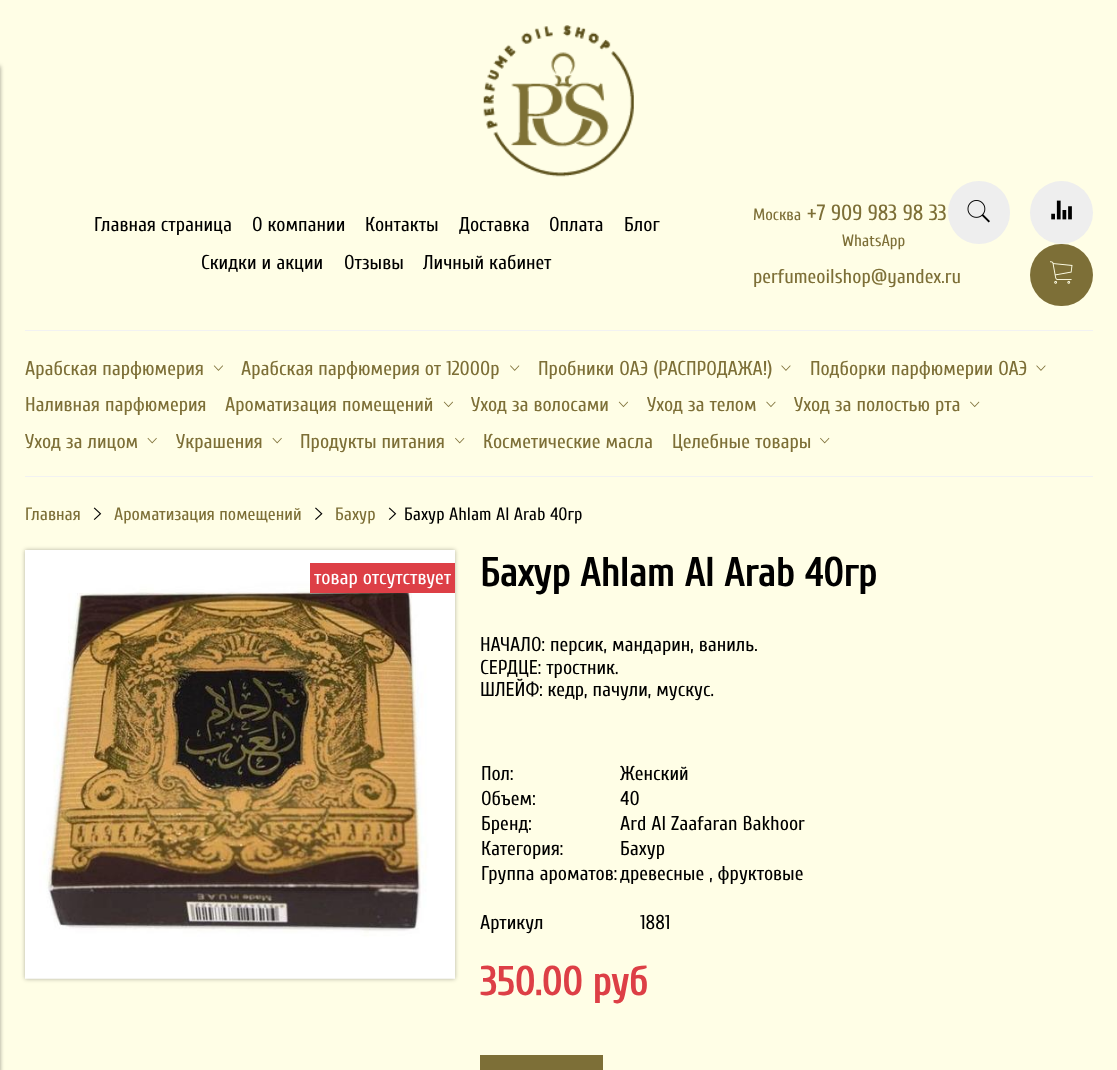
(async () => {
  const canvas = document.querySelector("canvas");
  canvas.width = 1117;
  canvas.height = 1070;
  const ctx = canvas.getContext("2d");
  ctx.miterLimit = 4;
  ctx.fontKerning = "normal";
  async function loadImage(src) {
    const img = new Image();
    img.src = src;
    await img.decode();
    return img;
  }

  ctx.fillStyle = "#fffee6";
  ctx.fillRect(0, 0, 1117, 1070);
  ctx.fillStyle = "rgba(0, 0, 0, 0.4)";
  ctx.filter = "blur(2px)";
  ctx.beginPath();
  ctx.rect(-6, 66, 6, 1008);
  ctx.fill();
  ctx.filter = "none";
  ctx.drawImage(await loadImage("img/1.png"), 483, 25, 151, 152);
  ctx.fillStyle = "#eeeeee";
  ctx.beginPath();
  ctx.roundRect(948, 181, 62, 63, 31);
  ctx.fill();
  ctx.drawImage(await loadImage("img/2.png"), 967, 200, 23, 23);
  ctx.beginPath();
  ctx.arc(1061.5, 212.5, 31.5, 0, Math.PI * 2);
  ctx.fill();
  ctx.drawImage(await loadImage("img/3.png"), 1051, 200, 21, 20);
  ctx.fillStyle = "#7d6f37";
  ctx.beginPath();
  ctx.roundRect(1030, 244, 63, 62, 31);
  ctx.fill();
  ctx.drawImage(await loadImage("img/4.png"), 1050, 261, 23, 23);
  ctx.fillStyle = "#f2f2f2";
  ctx.fillRect(25, 330, 1068, 1);
  ctx.drawImage(await loadImage("img/5.png"), 213, 365, 10, 6);
  ctx.drawImage(await loadImage("img/6.png"), 510, 365, 10, 6);
  ctx.drawImage(await loadImage("img/7.png"), 781, 365, 10, 6);
  ctx.drawImage(await loadImage("img/7.png"), 1036, 365, 10, 6);
  ctx.drawImage(await loadImage("img/8.png"), 443, 401, 10, 7);
  ctx.drawImage(await loadImage("img/8.png"), 618, 401, 10, 7);
  ctx.drawImage(await loadImage("img/9.png"), 766, 401, 10, 7);
  ctx.drawImage(await loadImage("img/10.png"), 970, 401, 10, 7);
  ctx.drawImage(await loadImage("img/11.png"), 147, 437, 10, 7);
  ctx.drawImage(await loadImage("img/11.png"), 272, 437, 10, 7);
  ctx.drawImage(await loadImage("img/12.png"), 455, 437, 10, 7);
  ctx.drawImage(await loadImage("img/12.png"), 820, 437, 10, 7);
  ctx.fillRect(25, 476, 1068, 1);
  ctx.drawImage(await loadImage("img/13.png"), 93, 507, 9, 13);
  ctx.drawImage(await loadImage("img/14.png"), 315, 507, 8, 13);
  ctx.drawImage(await loadImage("img/13.png"), 388, 507, 9, 13);
  ctx.fillStyle = "rgba(0, 0, 0, 0.3)";
  ctx.filter = "blur(2px)";
  ctx.beginPath();
  ctx.rect(25, 550, 430, 429);
  ctx.fill();
  ctx.filter = "none";
  ctx.drawImage(await loadImage("img/15.png"), 25, 550, 430, 429);
  ctx.fillStyle = "#dd3f46";
  ctx.fillRect(310, 563, 145, 30);
  ctx.fillStyle = "#7d6f37";
  ctx.fillRect(480, 1055, 123, 15);
  ctx.font = "20px Cuprum";
  ctx.fillStyle = "#000000";
  for (const [text, x, y] of [
    ["Главная страница", 94, 231],
    ["О компании", 252, 231],
    ["Контакты", 365, 231],
    ["Доставка", 459, 231],
    ["Оплата", 549, 231],
    ["Блог", 624, 231],
    ["Скидки и акции", 201, 269],
    ["Отзывы", 344, 269],
    ["Личный кабинет", 423, 269],
  ]) {
    ctx.fillText(text, x, y);
  }
  ctx.font = "16.5px Cuprum";
  ctx.fillStyle = "#7d6f37";
  ctx.fillText("Москва", 753, 220);
  ctx.font = "22px Cuprum";
  ctx.fillText("+7 909 983 98 33", 807, 220);
  ctx.font = "16.5px Cuprum";
  ctx.fillText("WhatsApp", 842, 246);
  ctx.font = "20px Cuprum";
  for (const [text, x, y] of [
    ["perfumeoilshop@yandex.ru", 753, 283],
    ["Арабская парфюмерия", 25, 375],
    ["Арабская парфюмерия от 12000р", 241, 375],
    ["Пробники ОАЭ (РАСПРОДАЖА!)", 538, 375],
    ["Подборки парфюмерии ОАЭ", 810, 375],
    ["Наливная парфюмерия", 25, 411],
    ["Ароматизация помещений", 225, 411],
    ["Уход за волосами", 471, 411],
    ["Уход за телом", 647, 411],
    ["Уход за полостью рта", 794, 411],
    ["Уход за лицом", 25, 448],
    ["Украшения", 176, 448],
    ["Продукты питания", 300, 448],
    ["Косметические масла", 483, 448],
    ["Целебные товары", 672, 448],
  ]) {
    ctx.fillText(text, x, y);
  }
  ctx.font = "18px Cuprum";
  for (const [text, x, y] of [
    ["Главная", 25, 520],
    ["Ароматизация помещений", 114, 520],
    ["Бахур", 335, 520],
  ]) {
    ctx.fillText(text, x, y);
  }
  ctx.fillStyle = "#000000";
  ctx.fillText("Бахур Ahlam Al Arab 40гр", 404, 520);
  ctx.font = "20px Cuprum";
  ctx.fillStyle = "#ffffff";
  ctx.fillText("товар отсутствует", 314, 584);
  ctx.font = "bold 40px Cuprum";
  ctx.fillStyle = "#000000";
  ctx.fillText("Бахур Ahlam Al Arab 40гр", 480, 586);
  ctx.font = "20px Cuprum";
  for (const [text, x, y] of [
    ["НАЧАЛО: персик, мандарин, ваниль.", 480, 651],
    ["СЕРДЦЕ: тростник.", 480, 674],
    ["ШЛЕЙФ: кедр, пачули, мускус.", 480, 696],
    ["Пол:", 481, 780],
    ["Женский", 620, 780],
    ["Объем:", 481, 805],
    ["40", 620, 805],
    ["Бренд:", 481, 830],
    ["Ard Al Zaafaran Bakhoor", 620, 830],
    ["Категория:", 481, 855],
    ["Бахур", 620, 855],
    ["Группа ароматов:", 481, 880],
    ["древесные , фруктовые", 620, 880],
    ["Артикул", 480, 929],
    ["1881", 640, 929],
  ]) {
    ctx.fillText(text, x, y);
  }
  ctx.font = "bold 40px Cuprum";
  ctx.fillStyle = "#dd3f46";
  ctx.fillText("350.00 руб", 480, 995);
})();
